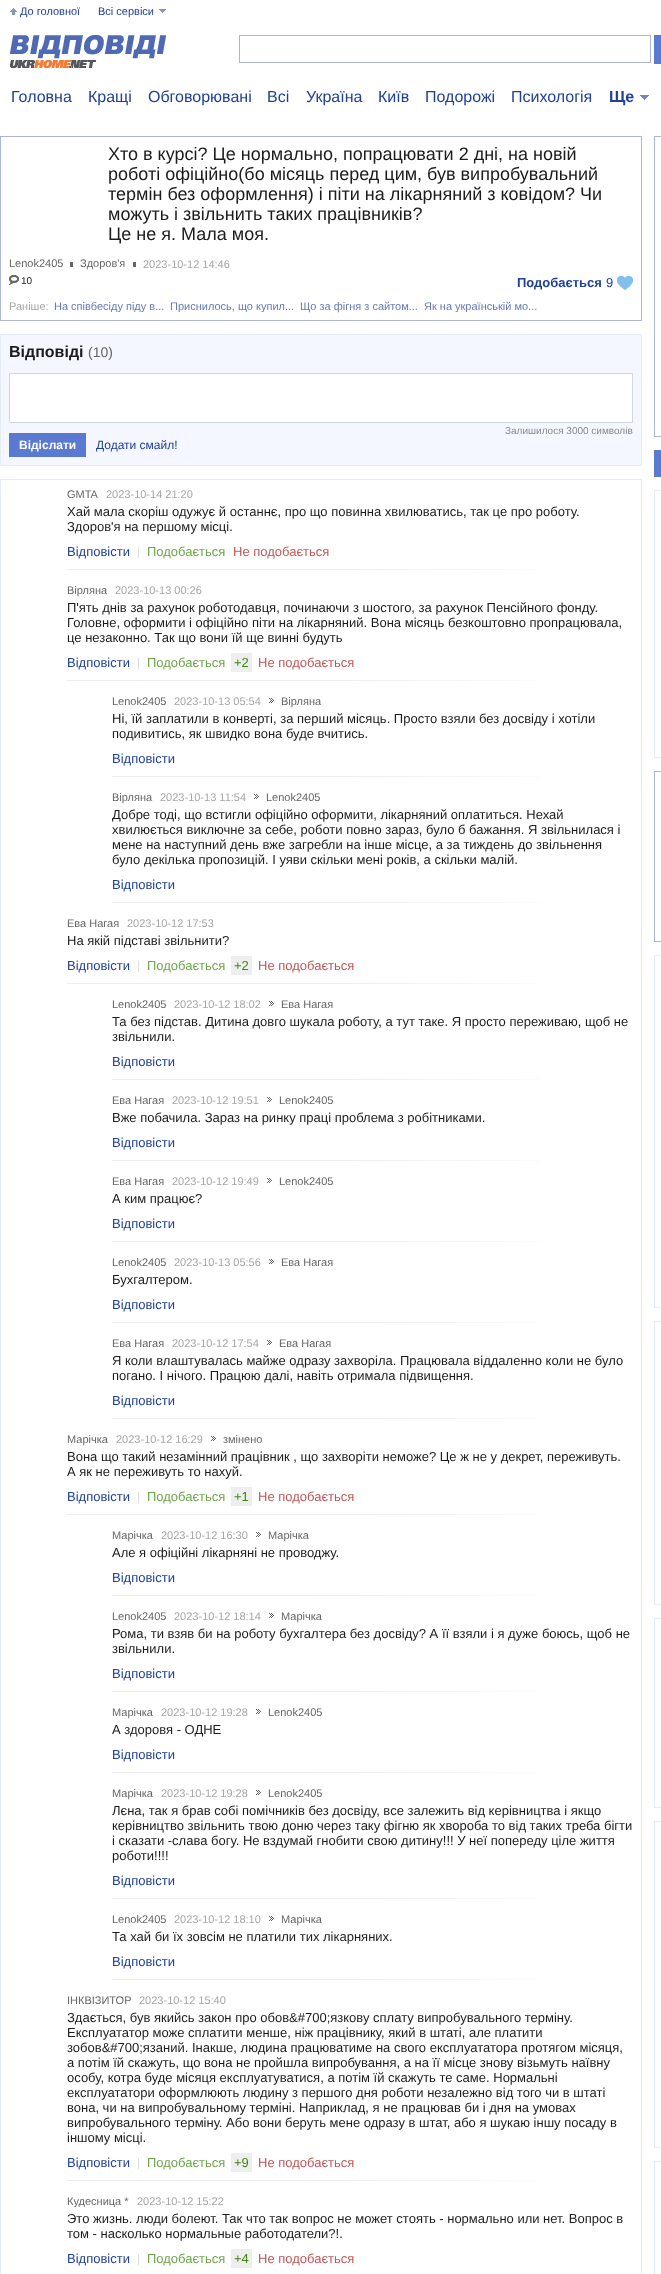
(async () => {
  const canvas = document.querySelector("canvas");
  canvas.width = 661;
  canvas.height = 2274;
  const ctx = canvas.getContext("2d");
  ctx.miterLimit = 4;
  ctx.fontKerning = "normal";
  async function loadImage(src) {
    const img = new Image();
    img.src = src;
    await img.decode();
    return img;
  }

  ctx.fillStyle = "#ffffff";
  ctx.fillRect(0, 0, 661, 2274);
  ctx.drawImage(await loadImage("img/1.png"), 10, 8, 7, 7);
  ctx.drawImage(await loadImage("img/2.png"), 159, 9, 7, 4);
  ctx.drawImage(await loadImage("img/3.png"), 10, 35, 156, 33);
  ctx.strokeStyle = "#a9b6d9";
  ctx.strokeRect(239.5, 35.5, 411, 27);
  ctx.fillStyle = "#5a79d1";
  ctx.fillRect(654, 35, 7, 29);
  ctx.drawImage(await loadImage("img/4.png"), 640, 95, 9, 5);
  ctx.strokeRect(0.5, 136.5, 641, 184);
  ctx.fillStyle = "#666666";
  ctx.fillRect(70, 262, 3, 5);
  ctx.fillRect(133, 262, 3, 5);
  ctx.drawImage(await loadImage("img/5.png"), 9, 275, 10, 10);
  ctx.drawImage(await loadImage("img/6.png"), 617, 276, 16, 14);
  ctx.fillStyle = "#f4f7ff";
  ctx.beginPath();
  ctx.rect(0.5, 334.5, 641, 131);
  ctx.fill();
  ctx.strokeStyle = "#e6ebfa";
  ctx.stroke();
  ctx.fillStyle = "#ffffff";
  ctx.beginPath();
  ctx.rect(9.5, 373.5, 623, 49);
  ctx.fill();
  ctx.strokeStyle = "#cfd6ec";
  ctx.stroke();
  ctx.fillStyle = "#5a79d1";
  ctx.fillRect(9, 433, 77, 24);
  ctx.strokeStyle = "#e6ebfa";
  ctx.strokeRect(0.5, 479.5, 641, 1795);
  ctx.fillStyle = "#dedede";
  ctx.fillRect(138, 547, 1, 11);
  ctx.drawImage(await loadImage("img/7.png"), 67, 569, 471, 1);
  ctx.fillRect(138, 658, 1, 11);
  ctx.fillStyle = "#eeeeee";
  ctx.fillRect(231, 653, 21, 19);
  ctx.drawImage(await loadImage("img/7.png"), 67, 680, 471, 1);
  ctx.drawImage(await loadImage("img/8.png"), 269, 698, 5, 5);
  ctx.drawImage(await loadImage("img/9.png"), 112, 776, 428, 1);
  ctx.drawImage(await loadImage("img/8.png"), 254, 794, 5, 5);
  ctx.drawImage(await loadImage("img/9.png"), 112, 902, 428, 1);
  ctx.fillStyle = "#dedede";
  ctx.fillRect(138, 961, 1, 11);
  ctx.fillStyle = "#eeeeee";
  ctx.fillRect(231, 956, 21, 19);
  ctx.drawImage(await loadImage("img/7.png"), 67, 983, 471, 1);
  ctx.drawImage(await loadImage("img/8.png"), 269, 1001, 5, 5);
  ctx.drawImage(await loadImage("img/9.png"), 112, 1079, 428, 1);
  ctx.drawImage(await loadImage("img/8.png"), 267, 1097, 5, 5);
  ctx.drawImage(await loadImage("img/9.png"), 112, 1160, 428, 1);
  ctx.drawImage(await loadImage("img/8.png"), 267, 1178, 5, 5);
  ctx.drawImage(await loadImage("img/9.png"), 112, 1241, 428, 1);
  ctx.drawImage(await loadImage("img/8.png"), 269, 1259, 5, 5);
  ctx.drawImage(await loadImage("img/9.png"), 112, 1322, 428, 1);
  ctx.drawImage(await loadImage("img/8.png"), 267, 1340, 5, 5);
  ctx.drawImage(await loadImage("img/9.png"), 112, 1418, 428, 1);
  ctx.drawImage(await loadImage("img/8.png"), 211, 1436, 5, 5);
  ctx.fillStyle = "#dedede";
  ctx.fillRect(138, 1492, 1, 11);
  ctx.fillStyle = "#eeeeee";
  ctx.fillRect(231, 1487, 21, 19);
  ctx.drawImage(await loadImage("img/7.png"), 67, 1514, 471, 1);
  ctx.drawImage(await loadImage("img/8.png"), 256, 1532, 5, 5);
  ctx.drawImage(await loadImage("img/9.png"), 112, 1595, 428, 1);
  ctx.drawImage(await loadImage("img/8.png"), 269, 1613, 5, 5);
  ctx.drawImage(await loadImage("img/9.png"), 112, 1691, 428, 1);
  ctx.drawImage(await loadImage("img/8.png"), 256, 1709, 5, 5);
  ctx.drawImage(await loadImage("img/9.png"), 112, 1772, 428, 1);
  ctx.drawImage(await loadImage("img/8.png"), 256, 1790, 5, 5);
  ctx.drawImage(await loadImage("img/9.png"), 112, 1898, 428, 1);
  ctx.drawImage(await loadImage("img/8.png"), 269, 1916, 5, 5);
  ctx.drawImage(await loadImage("img/9.png"), 112, 1979, 428, 1);
  ctx.fillStyle = "#dedede";
  ctx.fillRect(138, 2158, 1, 11);
  ctx.fillStyle = "#eeeeee";
  ctx.fillRect(231, 2153, 21, 19);
  ctx.drawImage(await loadImage("img/7.png"), 67, 2180, 471, 1);
  ctx.fillStyle = "#dedede";
  ctx.fillRect(138, 2254, 1, 11);
  ctx.fillStyle = "#eeeeee";
  ctx.fillRect(231, 2249, 21, 19);
  ctx.strokeStyle = "#a9b6d9";
  ctx.strokeRect(654.5, 136.5, 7, 300);
  ctx.fillStyle = "#5a79d1";
  ctx.fillRect(654, 450, 7, 27);
  ctx.strokeStyle = "#e6ebfa";
  ctx.strokeRect(654.5, 490.5, 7, 267);
  ctx.strokeStyle = "#a9b6d9";
  ctx.strokeRect(654.5, 771.5, 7, 170);
  ctx.strokeStyle = "#e6ebfa";
  ctx.strokeRect(654.5, 955.5, 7, 352);
  ctx.strokeRect(654.5, 1321.5, 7, 283);
  ctx.strokeRect(654.5, 1618.5, 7, 189);
  ctx.strokeRect(654.5, 1821.5, 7, 326);
  ctx.strokeRect(654.5, 2161.5, 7, 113);
  ctx.font = "11px Liberation Sans";
  ctx.fillStyle = "#20409a";
  ctx.fillText("До головної", 20, 15);
  ctx.fillText("Всі сервіси", 98, 15);
  ctx.font = "16px Liberation Sans";
  for (const [text, x, y] of [
    ["Головна", 11, 102],
    ["Кращі", 88, 102],
    ["Обговорювані", 148, 102],
    ["Всі", 267, 102],
    ["Україна", 306, 102],
    ["Київ", 378, 102],
    ["Подорожі", 425, 102],
    ["Психологія", 511, 102],
  ]) {
    ctx.fillText(text, x, y);
  }
  ctx.font = "bold 16px Liberation Sans";
  ctx.fillText("Ще", 609, 102);
  ctx.font = "18px Liberation Sans";
  ctx.fillStyle = "#1c1c1c";
  for (const [text, x, y] of [
    ["Хто в курсі? Це нормально, попрацювати 2 дні, на новій", 108, 160],
    ["роботі офіційно(бо місяць перед цим, був випробувальний", 108, 180],
    ["термін без оформлення) і піти на лікарняний з ковідом? Чи", 108, 200],
    ["можуть і звільнить таких працівників?", 108, 220],
    ["Це не я. Мала моя.", 108, 240],
  ]) {
    ctx.fillText(text, x, y);
  }
  ctx.font = "11px Liberation Sans";
  ctx.fillStyle = "#666666";
  ctx.fillText("Lenok2405", 9, 267);
  ctx.fillText("Здоров'я", 80, 267);
  ctx.fillStyle = "#a6a6a6";
  ctx.fillText("2023-10-12 14:46", 143, 268);
  ctx.font = "10px Liberation Sans";
  ctx.fillStyle = "#1c1c1c";
  ctx.fillText("10", 21, 284);
  ctx.font = "bold 13px Liberation Sans";
  ctx.fillStyle = "#20409a";
  ctx.fillText("Подобається", 517, 287);
  ctx.font = "13px Liberation Sans";
  ctx.fillText("9", 606, 287);
  ctx.font = "11px Liberation Sans";
  ctx.fillStyle = "#a6a6a6";
  ctx.fillText("Раніше:", 9, 310);
  ctx.save();
  ctx.beginPath();
  ctx.rect(9, 145, 624, 167);
  ctx.clip();
  ctx.fillStyle = "#6379b8";
  ctx.fillText("На співбесіду піду в...", 54, 310);
  ctx.fillText("Приснилось, що купил...", 170, 310);
  ctx.restore();
  ctx.fillStyle = "#6379b8";
  ctx.fillText("Що за фігня з сайтом...", 300, 310);
  ctx.save();
  ctx.beginPath();
  ctx.rect(9, 145, 624, 167);
  ctx.clip();
  ctx.fillText("Як на українській мо...", 424, 310);
  ctx.restore();
  ctx.font = "bold 16px Liberation Sans";
  ctx.fillStyle = "#1c1c1c";
  ctx.fillText("Відповіді", 9, 357);
  ctx.font = "14px Liberation Sans";
  ctx.fillStyle = "#666666";
  ctx.fillText("(10)", 88, 357);
  ctx.font = "10px Liberation Sans";
  ctx.fillStyle = "#888888";
  ctx.fillText("Залишилося 3000 символів", 505, 434);
  ctx.font = "bold 12px Liberation Sans";
  ctx.fillStyle = "#ffffff";
  ctx.fillText("Відіслати", 19, 449);
  ctx.font = "12px Liberation Sans";
  ctx.fillStyle = "#20409a";
  ctx.fillText("Додати смайл!", 96, 449);
  ctx.font = "11px Liberation Sans";
  ctx.fillStyle = "#666666";
  ctx.fillText("GMTA", 67, 498);
  ctx.fillStyle = "#a6a6a6";
  ctx.fillText("2023-10-14 21:20", 106, 498);
  ctx.font = "13px Liberation Sans";
  ctx.fillStyle = "#1c1c1c";
  ctx.fillText("Хай мала скоріш одужує й останнє, про що повинна хвилюватись, так це про роботу.", 67, 516);
  ctx.fillText("Здоров'я на першому місці.", 67, 531);
  ctx.fillStyle = "#20409a";
  ctx.fillText("Відповісти", 67, 556);
  ctx.fillStyle = "#6da64a";
  ctx.fillText("Подобається", 147, 556);
  ctx.fillStyle = "#c15757";
  ctx.fillText("Не подобається", 233, 556);
  ctx.font = "11px Liberation Sans";
  ctx.fillStyle = "#666666";
  ctx.fillText("Вірляна", 67, 594);
  ctx.fillStyle = "#a6a6a6";
  ctx.fillText("2023-10-13 00:26", 115, 594);
  ctx.font = "13px Liberation Sans";
  ctx.fillStyle = "#1c1c1c";
  for (const [text, x, y] of [
    ["П'ять днів за рахунок роботодавця, починаючи з шостого, за рахунок Пенсійного фонду.", 67, 612],
    ["Головне, оформити і офіційно піти на лікарняний. Вона місяць безкоштовно пропрацювала,", 67, 627],
    ["це незаконно. Так що вони їй ще винні будуть", 67, 642],
  ]) {
    ctx.fillText(text, x, y);
  }
  ctx.fillStyle = "#20409a";
  ctx.fillText("Відповісти", 67, 667);
  ctx.fillStyle = "#6da64a";
  ctx.fillText("Подобається", 147, 667);
  ctx.fillStyle = "#408715";
  ctx.fillText("+2", 234, 667);
  ctx.fillStyle = "#c15757";
  ctx.fillText("Не подобається", 258, 667);
  ctx.font = "11px Liberation Sans";
  ctx.fillStyle = "#666666";
  ctx.fillText("Lenok2405", 112, 705);
  ctx.fillStyle = "#a6a6a6";
  ctx.fillText("2023-10-13 05:54", 174, 705);
  ctx.fillStyle = "#666666";
  ctx.fillText("Вірляна", 281, 705);
  ctx.font = "13px Liberation Sans";
  ctx.fillStyle = "#1c1c1c";
  ctx.fillText("Ні, їй заплатили в конверті, за перший місяць. Просто взяли без досвіду і хотіли", 112, 723);
  ctx.fillText("подивитись, як швидко вона буде вчитись.", 112, 738);
  ctx.fillStyle = "#20409a";
  ctx.fillText("Відповісти", 112, 763);
  ctx.font = "11px Liberation Sans";
  ctx.fillStyle = "#666666";
  ctx.fillText("Вірляна", 112, 801);
  ctx.fillStyle = "#a6a6a6";
  ctx.fillText("2023-10-13 11:54", 160, 801);
  ctx.fillStyle = "#666666";
  ctx.fillText("Lenok2405", 266, 801);
  ctx.font = "13px Liberation Sans";
  ctx.fillStyle = "#1c1c1c";
  for (const [text, x, y] of [
    ["Добре тоді, що встигли офіційно оформити, лікарняний оплатиться. Нехай", 112, 819],
    ["хвилюється виключне за себе, роботи повно зараз, було б бажання. Я звільнилася і", 112, 834],
    ["мене на наступний день вже загребли на інше місце, а за тиждень до звільнення", 112, 849],
    ["було декілька пропозицій. І уяви скільки мені років, а скільки малій.", 112, 864],
  ]) {
    ctx.fillText(text, x, y);
  }
  ctx.fillStyle = "#20409a";
  ctx.fillText("Відповісти", 112, 889);
  ctx.font = "11px Liberation Sans";
  ctx.fillStyle = "#666666";
  ctx.fillText("Ева Нагая", 67, 927);
  ctx.fillStyle = "#a6a6a6";
  ctx.fillText("2023-10-12 17:53", 127, 927);
  ctx.font = "13px Liberation Sans";
  ctx.fillStyle = "#1c1c1c";
  ctx.fillText("На якій підставі звільнити?", 67, 945);
  ctx.fillStyle = "#20409a";
  ctx.fillText("Відповісти", 67, 970);
  ctx.fillStyle = "#6da64a";
  ctx.fillText("Подобається", 147, 970);
  ctx.fillStyle = "#408715";
  ctx.fillText("+2", 234, 970);
  ctx.fillStyle = "#c15757";
  ctx.fillText("Не подобається", 258, 970);
  ctx.font = "11px Liberation Sans";
  ctx.fillStyle = "#666666";
  ctx.fillText("Lenok2405", 112, 1008);
  ctx.fillStyle = "#a6a6a6";
  ctx.fillText("2023-10-12 18:02", 174, 1008);
  ctx.fillStyle = "#666666";
  ctx.fillText("Ева Нагая", 281, 1008);
  ctx.font = "13px Liberation Sans";
  ctx.fillStyle = "#1c1c1c";
  ctx.fillText("Та без підстав. Дитина довго шукала роботу, а тут таке. Я просто переживаю, щоб не", 112, 1026);
  ctx.fillText("звільнили.", 112, 1041);
  ctx.fillStyle = "#20409a";
  ctx.fillText("Відповісти", 112, 1066);
  ctx.font = "11px Liberation Sans";
  ctx.fillStyle = "#666666";
  ctx.fillText("Ева Нагая", 112, 1104);
  ctx.fillStyle = "#a6a6a6";
  ctx.fillText("2023-10-12 19:51", 172, 1104);
  ctx.fillStyle = "#666666";
  ctx.fillText("Lenok2405", 279, 1104);
  ctx.font = "13px Liberation Sans";
  ctx.fillStyle = "#1c1c1c";
  ctx.fillText("Вже побачила. Зараз на ринку праці проблема з робітниками.", 112, 1122);
  ctx.fillStyle = "#20409a";
  ctx.fillText("Відповісти", 112, 1147);
  ctx.font = "11px Liberation Sans";
  ctx.fillStyle = "#666666";
  ctx.fillText("Ева Нагая", 112, 1185);
  ctx.fillStyle = "#a6a6a6";
  ctx.fillText("2023-10-12 19:49", 172, 1185);
  ctx.fillStyle = "#666666";
  ctx.fillText("Lenok2405", 279, 1185);
  ctx.font = "13px Liberation Sans";
  ctx.fillStyle = "#1c1c1c";
  ctx.fillText("А ким працює?", 112, 1203);
  ctx.fillStyle = "#20409a";
  ctx.fillText("Відповісти", 112, 1228);
  ctx.font = "11px Liberation Sans";
  ctx.fillStyle = "#666666";
  ctx.fillText("Lenok2405", 112, 1266);
  ctx.fillStyle = "#a6a6a6";
  ctx.fillText("2023-10-13 05:56", 174, 1266);
  ctx.fillStyle = "#666666";
  ctx.fillText("Ева Нагая", 281, 1266);
  ctx.font = "13px Liberation Sans";
  ctx.fillStyle = "#1c1c1c";
  ctx.fillText("Бухгалтером.", 112, 1284);
  ctx.fillStyle = "#20409a";
  ctx.fillText("Відповісти", 112, 1309);
  ctx.font = "11px Liberation Sans";
  ctx.fillStyle = "#666666";
  ctx.fillText("Ева Нагая", 112, 1347);
  ctx.fillStyle = "#a6a6a6";
  ctx.fillText("2023-10-12 17:54", 172, 1347);
  ctx.fillStyle = "#666666";
  ctx.fillText("Ева Нагая", 279, 1347);
  ctx.font = "13px Liberation Sans";
  ctx.fillStyle = "#1c1c1c";
  ctx.fillText("Я коли влаштувалась майже одразу захворіла. Працювала віддаленно коли не було", 112, 1365);
  ctx.fillText("погано. І нічого. Працюю далі, навіть отримала підвищення.", 112, 1380);
  ctx.fillStyle = "#20409a";
  ctx.fillText("Відповісти", 112, 1405);
  ctx.font = "11px Liberation Sans";
  ctx.fillStyle = "#666666";
  ctx.fillText("Марічка", 67, 1443);
  ctx.fillStyle = "#a6a6a6";
  ctx.fillText("2023-10-12 16:29", 116, 1443);
  ctx.fillStyle = "#666666";
  ctx.fillText("змінено", 223, 1443);
  ctx.font = "13px Liberation Sans";
  ctx.fillStyle = "#1c1c1c";
  ctx.fillText("Вона що такий незамінний працівник , що захворіти неможе? Це ж не у декрет, переживуть.", 67, 1461);
  ctx.fillText("А як не переживуть то нахуй.", 67, 1476);
  ctx.fillStyle = "#20409a";
  ctx.fillText("Відповісти", 67, 1501);
  ctx.fillStyle = "#6da64a";
  ctx.fillText("Подобається", 147, 1501);
  ctx.fillStyle = "#408715";
  ctx.fillText("+1", 234, 1501);
  ctx.fillStyle = "#c15757";
  ctx.fillText("Не подобається", 258, 1501);
  ctx.font = "11px Liberation Sans";
  ctx.fillStyle = "#666666";
  ctx.fillText("Марічка", 112, 1539);
  ctx.fillStyle = "#a6a6a6";
  ctx.fillText("2023-10-12 16:30", 161, 1539);
  ctx.fillStyle = "#666666";
  ctx.fillText("Марічка", 268, 1539);
  ctx.font = "13px Liberation Sans";
  ctx.fillStyle = "#1c1c1c";
  ctx.fillText("Але я офіційні лікарняні не проводжу.", 112, 1557);
  ctx.fillStyle = "#20409a";
  ctx.fillText("Відповісти", 112, 1582);
  ctx.font = "11px Liberation Sans";
  ctx.fillStyle = "#666666";
  ctx.fillText("Lenok2405", 112, 1620);
  ctx.fillStyle = "#a6a6a6";
  ctx.fillText("2023-10-12 18:14", 174, 1620);
  ctx.fillStyle = "#666666";
  ctx.fillText("Марічка", 281, 1620);
  ctx.font = "13px Liberation Sans";
  ctx.fillStyle = "#1c1c1c";
  ctx.fillText("Рома, ти взяв би на роботу бухгалтера без досвіду? А її взяли і я дуже боюсь, щоб не", 112, 1638);
  ctx.fillText("звільнили.", 112, 1653);
  ctx.fillStyle = "#20409a";
  ctx.fillText("Відповісти", 112, 1678);
  ctx.font = "11px Liberation Sans";
  ctx.fillStyle = "#666666";
  ctx.fillText("Марічка", 112, 1716);
  ctx.fillStyle = "#a6a6a6";
  ctx.fillText("2023-10-12 19:28", 161, 1716);
  ctx.fillStyle = "#666666";
  ctx.fillText("Lenok2405", 268, 1716);
  ctx.font = "13px Liberation Sans";
  ctx.fillStyle = "#1c1c1c";
  ctx.fillText("А здоровя - ОДНЕ", 112, 1734);
  ctx.fillStyle = "#20409a";
  ctx.fillText("Відповісти", 112, 1759);
  ctx.font = "11px Liberation Sans";
  ctx.fillStyle = "#666666";
  ctx.fillText("Марічка", 112, 1797);
  ctx.fillStyle = "#a6a6a6";
  ctx.fillText("2023-10-12 19:28", 161, 1797);
  ctx.fillStyle = "#666666";
  ctx.fillText("Lenok2405", 268, 1797);
  ctx.font = "13px Liberation Sans";
  ctx.fillStyle = "#1c1c1c";
  for (const [text, x, y] of [
    ["Лєна, так я брав собі помічників без досвіду, все залежить від керівництва і якщо", 112, 1815],
    ["керівництво звільнить твою доню через таку фігню як хвороба то від таких треба бігти", 112, 1830],
    ["і сказати -слава богу. Не вздумай гнобити свою дитину!!! У неї попереду ціле життя", 112, 1845],
    ["роботи!!!!", 112, 1860],
  ]) {
    ctx.fillText(text, x, y);
  }
  ctx.fillStyle = "#20409a";
  ctx.fillText("Відповісти", 112, 1885);
  ctx.font = "11px Liberation Sans";
  ctx.fillStyle = "#666666";
  ctx.fillText("Lenok2405", 112, 1923);
  ctx.fillStyle = "#a6a6a6";
  ctx.fillText("2023-10-12 18:10", 174, 1923);
  ctx.fillStyle = "#666666";
  ctx.fillText("Марічка", 281, 1923);
  ctx.font = "13px Liberation Sans";
  ctx.fillStyle = "#1c1c1c";
  ctx.fillText("Та хай би їх зовсім не платили тих лікарняних.", 112, 1941);
  ctx.fillStyle = "#20409a";
  ctx.fillText("Відповісти", 112, 1966);
  ctx.font = "11px Liberation Sans";
  ctx.fillStyle = "#666666";
  ctx.fillText("ІНКВІЗИТОР", 67, 2004);
  ctx.fillStyle = "#a6a6a6";
  ctx.fillText("2023-10-12 15:40", 139, 2004);
  ctx.font = "13px Liberation Sans";
  ctx.fillStyle = "#1c1c1c";
  for (const [text, x, y] of [
    ["Здається, був якийсь закон про обов&#700;язкову сплату випробувального терміну.", 67, 2022],
    ["Експлуататор може сплатити менше, ніж працівнику, який в штаті, але платити", 67, 2037],
    ["зобов&#700;язаний. Інакше, людина працюватиме на свого експлуататора протягом місяця,", 67, 2052],
    ["а потім їй скажуть, що вона не пройшла випробування, а на її місце знову візьмуть наївну", 67, 2067],
    ["особу, котра буде місяця експлуатуватися, а потім їй скажуть те саме. Нормальні", 67, 2082],
    ["експлуататори оформлюють людину з першого дня роботи незалежно від того чи в штаті", 67, 2097],
    ["вона, чи на випробувальному терміні. Наприклад, я не працював би і дня на умовах", 67, 2112],
    ["випробувального терміну. Або вони беруть мене одразу в штат, або я шукаю іншу посаду в", 67, 2127],
    ["іншому місці.", 67, 2142],
  ]) {
    ctx.fillText(text, x, y);
  }
  ctx.fillStyle = "#20409a";
  ctx.fillText("Відповісти", 67, 2167);
  ctx.fillStyle = "#6da64a";
  ctx.fillText("Подобається", 147, 2167);
  ctx.fillStyle = "#408715";
  ctx.fillText("+9", 234, 2167);
  ctx.fillStyle = "#c15757";
  ctx.fillText("Не подобається", 258, 2167);
  ctx.save();
  ctx.beginPath();
  ctx.rect(67, 2195, 566, 12);
  ctx.clip();
  ctx.font = "11px Liberation Sans";
  ctx.fillStyle = "#666666";
  ctx.fillText("Кудесница *", 67, 2205);
  ctx.restore();
  ctx.font = "11px Liberation Sans";
  ctx.fillStyle = "#a6a6a6";
  ctx.fillText("2023-10-12 15:22", 137, 2205);
  ctx.font = "13px Liberation Sans";
  ctx.fillStyle = "#1c1c1c";
  ctx.fillText("Это жизнь. люди болеют. Так что так вопрос не может стоять - нормально или нет. Вопрос в", 67, 2223);
  ctx.fillText("том - насколько нормальные работодатели?!.", 67, 2238);
  ctx.fillStyle = "#20409a";
  ctx.fillText("Відповісти", 67, 2263);
  ctx.fillStyle = "#6da64a";
  ctx.fillText("Подобається", 147, 2263);
  ctx.fillStyle = "#408715";
  ctx.fillText("+4", 234, 2263);
  ctx.fillStyle = "#c15757";
  ctx.fillText("Не подобається", 258, 2263);
})();
